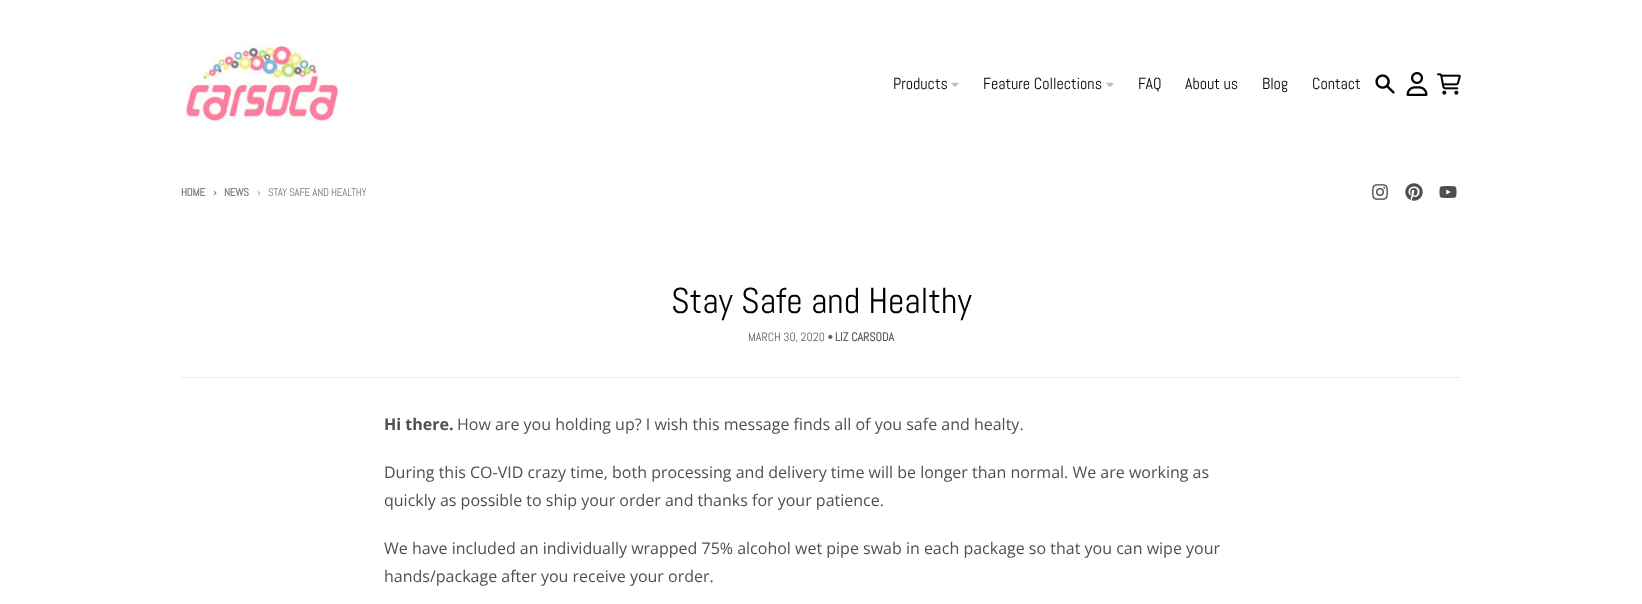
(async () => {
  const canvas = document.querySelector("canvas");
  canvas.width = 1642;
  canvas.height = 604;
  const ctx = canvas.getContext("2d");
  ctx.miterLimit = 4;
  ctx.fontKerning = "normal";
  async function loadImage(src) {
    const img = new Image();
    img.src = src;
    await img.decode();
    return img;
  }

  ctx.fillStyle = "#ffffff";
  ctx.fillRect(0, 0, 1642, 604);
  ctx.drawImage(await loadImage("img/1.png"), 183, 44, 157, 78);
  ctx.drawImage(await loadImage("img/2.png"), 951, 82, 8, 5);
  ctx.drawImage(await loadImage("img/2.png"), 1106, 82, 8, 5);
  ctx.drawImage(await loadImage("img/3.png"), 1375, 74, 20, 20);
  ctx.drawImage(await loadImage("img/4.png"), 1406, 72, 22, 24);
  ctx.drawImage(await loadImage("img/5.png"), 1437, 73, 24, 22);
  ctx.drawImage(await loadImage("img/6.png"), 1372, 184, 16, 16);
  ctx.drawImage(await loadImage("img/7.png"), 1405, 183, 18, 18);
  ctx.drawImage(await loadImage("img/8.png"), 1439, 186, 18, 12);
  ctx.fillStyle = "#ededed";
  ctx.fillRect(181, 377, 1280, 1);
  ctx.font = "16px Abel";
  ctx.fillStyle = "#000000";
  for (const [text, x, y] of [
    ["Products", 893, 89],
    ["Feature Collections", 983, 89],
    ["FAQ", 1138, 89],
    ["About us", 1185, 89],
    ["Blog", 1262, 89],
    ["Contact", 1312, 89],
  ]) {
    ctx.fillText(text, x, y);
  }
  ctx.letterSpacing = "-0.25px";
  ctx.font = "bold 11px Abel";
  ctx.fillStyle = "#7b7b7b";
  ctx.fillText("HOME", 181, 196);
  ctx.font = "bold 12px Abel";
  ctx.fillText("›", 213, 196);
  ctx.font = "bold 11px Abel";
  ctx.fillText("NEWS", 224, 196);
  ctx.font = "12px Abel";
  ctx.fillText("›", 257, 196);
  ctx.font = "11px Abel";
  ctx.fillText("STAY SAFE AND HEALTHY", 268, 196);
  ctx.letterSpacing = "0px";
  ctx.font = "36px Abel";
  ctx.fillStyle = "#000000";
  ctx.fillText("Stay Safe and Healthy", 671, 313);
  ctx.font = "12px Abel";
  ctx.fillStyle = "#616161";
  ctx.fillText("MARCH 30, 2020 •", 748, 341);
  ctx.font = "bold 12px Abel";
  ctx.fillText("LIZ CARSODA", 835, 341);
  ctx.font = "bold 16px Open Sans";
  ctx.fillStyle = "#4f4f4f";
  ctx.fillText("Hi there.", 384, 430);
  ctx.font = "16px Open Sans";
  for (const [text, x, y] of [
    ["How are you holding up? I wish this message finds all of you safe and healty.", 457, 430],
    ["During this CO-VID crazy time, both processing and delivery time will be longer than normal. We are working as", 384, 478],
    ["quickly as possible to ship your order and thanks for your patience.", 384, 506],
    ["We have included an individually wrapped 75% alcohol wet pipe swab in each package so that you can wipe your", 384, 554],
    ["hands/package after you receive your order.", 384, 582],
  ]) {
    ctx.fillText(text, x, y);
  }
})();
